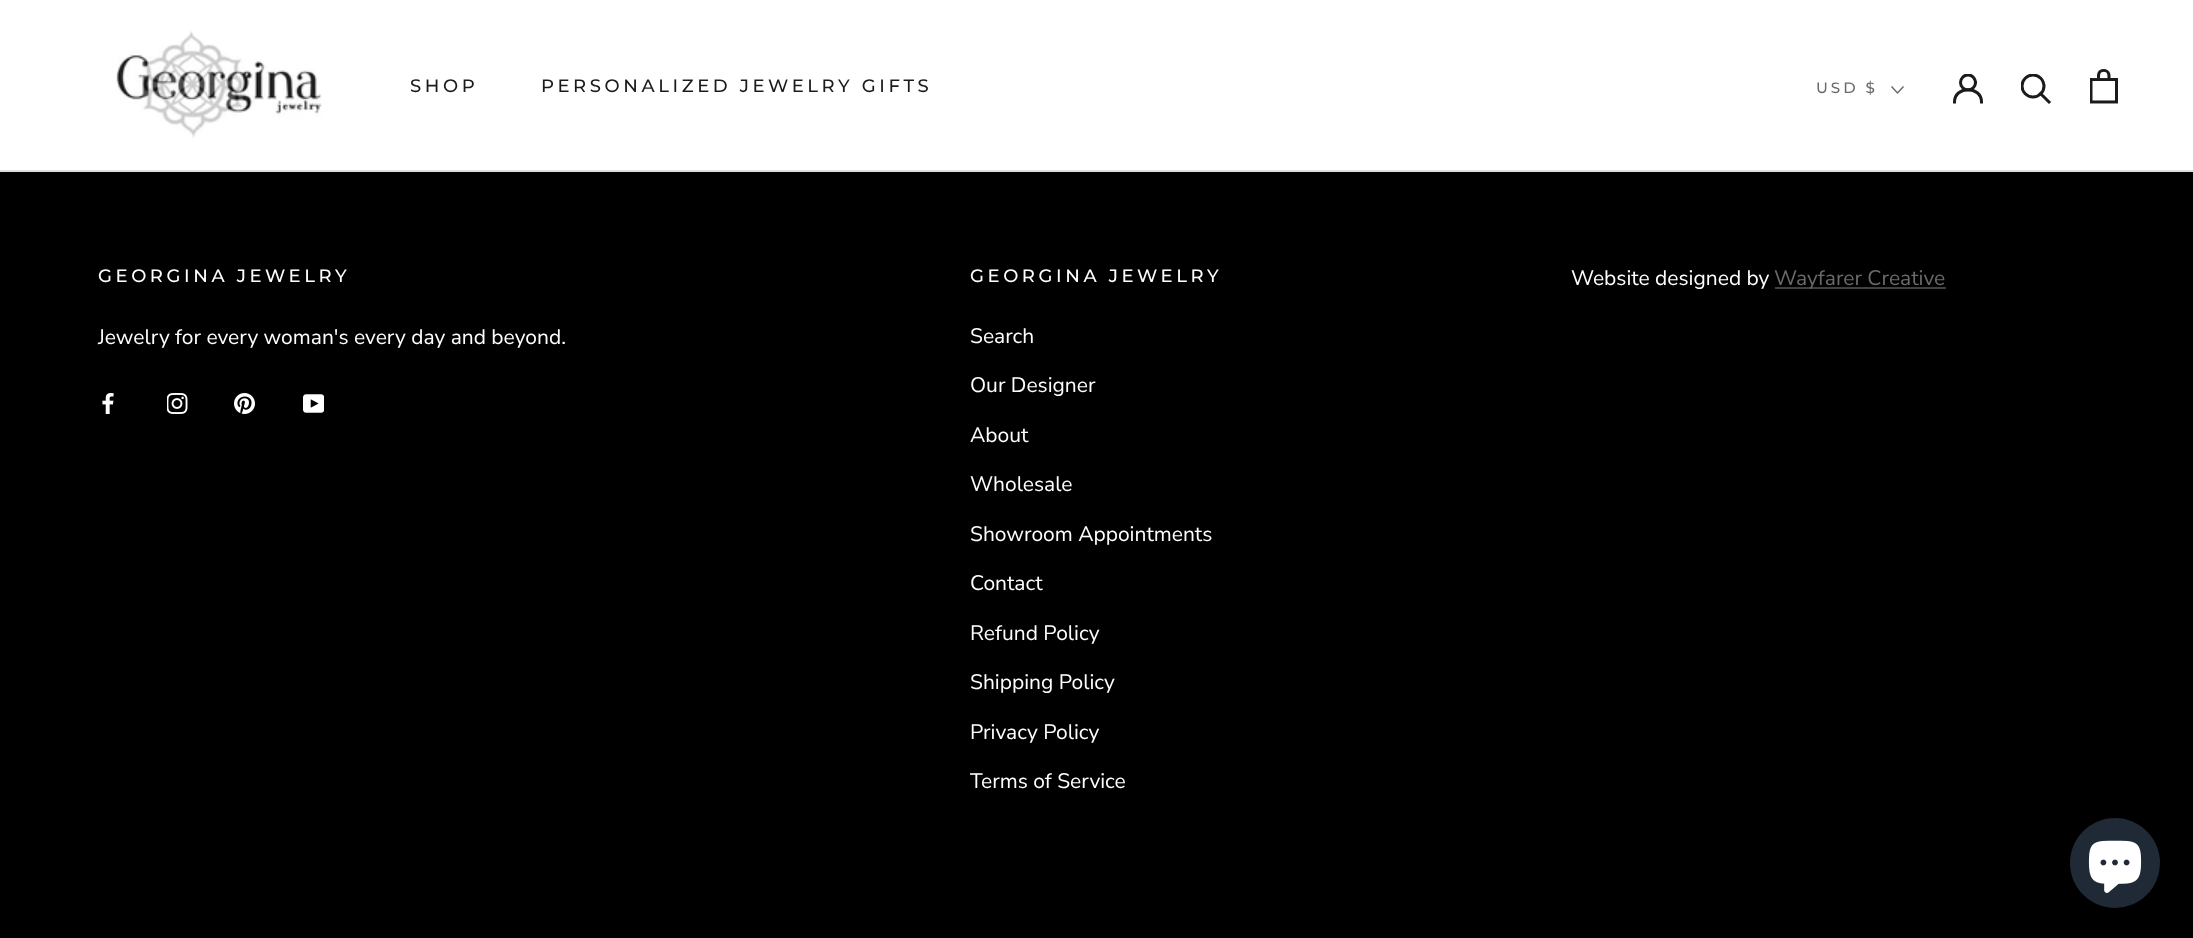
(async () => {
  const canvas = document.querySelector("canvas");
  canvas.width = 2193;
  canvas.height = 938;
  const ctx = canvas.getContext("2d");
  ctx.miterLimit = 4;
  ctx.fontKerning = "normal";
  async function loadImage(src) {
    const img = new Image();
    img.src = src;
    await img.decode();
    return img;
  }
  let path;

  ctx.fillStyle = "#000000";
  ctx.fillRect(0, 0, 2193, 938);
  ctx.fillStyle = "#ffffff";
  ctx.fillRect(0, 0, 2193, 170);
  ctx.fillStyle = "#dddddd";
  ctx.fillRect(0, 170, 2193, 2);
  ctx.drawImage(await loadImage("img/1.png"), 116, 31, 206, 107);
  path = new Path2D("M1903 87L1897.5 93L1892 87");
  ctx.strokeStyle = "#6a6a6a";
  ctx.lineWidth = 1.5;
  ctx.lineCap = "square";
  ctx.stroke(path);
  path = new Path2D("M1954.5 102C1954.5 85.5 1981.5 85.5 1981.5 102");
  ctx.strokeStyle = "#1c1b1b";
  ctx.lineWidth = 3;
  ctx.stroke(path);
  ctx.save();
  ctx.beginPath();
  ctx.rect(1953, 74, 30, 30);
  ctx.clip();
  ctx.beginPath();
  ctx.arc(1968, 82.5, 7.5, 0, Math.PI * 2);
  ctx.stroke();
  ctx.restore();
  path = new Path2D("M2049 102L2040.5 93.5");
  ctx.stroke(path);
  ctx.save();
  ctx.beginPath();
  ctx.rect(2021, 74, 31, 31);
  ctx.clip();
  ctx.beginPath();
  ctx.arc(2033, 86, 11, 0, Math.PI * 2);
  ctx.stroke();
  ctx.restore();
  ctx.drawImage(await loadImage("img/2.png"), 2090, 69, 28, 35);
  ctx.drawImage(await loadImage("img/3.png"), 102, 393, 12, 21);
  ctx.drawImage(await loadImage("img/4.png"), 167, 393, 21, 21);
  ctx.drawImage(await loadImage("img/5.png"), 234, 393, 21, 21);
  ctx.drawImage(await loadImage("img/6.png"), 303, 394, 21, 19);
  ctx.fillStyle = "#404040";
  ctx.fillRect(1775, 287, 171, 2);
  ctx.fillStyle = "#202a36";
  ctx.beginPath();
  ctx.arc(2115, 863, 45, 0, Math.PI * 2);
  ctx.fill();
  ctx.drawImage(await loadImage("img/7.png"), 2088, 840, 54, 53);
  ctx.letterSpacing = "3.6px";
  ctx.font = "500 18px Montserrat";
  ctx.fillStyle = "#1c1b1b";
  ctx.fillText("SHOP", 410, 92);
  ctx.fillText("PERSONALIZED JEWELRY GIFTS", 541, 92);
  ctx.letterSpacing = "3px";
  ctx.font = "500 15px Montserrat";
  ctx.fillStyle = "#6a6a6a";
  ctx.fillText("USD $", 1816, 93);
  ctx.letterSpacing = "3.6px";
  ctx.font = "500 18px Montserrat";
  ctx.fillStyle = "#ffffff";
  ctx.fillText("GEORGINA JEWELRY", 98, 282);
  ctx.letterSpacing = "0px";
  ctx.font = "21px Nunito Sans";
  ctx.fillText("Jewelry for every woman's every day and beyond.", 98, 344);
  ctx.letterSpacing = "3.6px";
  ctx.font = "500 18px Montserrat";
  ctx.fillText("GEORGINA JEWELRY", 970, 282);
  ctx.letterSpacing = "0px";
  ctx.font = "21px Nunito Sans";
  for (const [text, x, y] of [
    ["Search", 970, 343],
    ["Our Designer", 970, 392],
    ["About", 970, 442],
    ["Wholesale", 970, 491],
    ["Showroom Appointments", 970, 541],
    ["Contact", 970, 590],
    ["Refund Policy", 970, 640],
    ["Shipping Policy", 970, 689],
    ["Privacy Policy", 970, 739],
    ["Terms of Service", 970, 788],
    ["Website designed by", 1571, 285],
  ]) {
    ctx.fillText(text, x, y);
  }
  ctx.fillStyle = "#6a6a6a";
  ctx.fillText("Wayfarer Creative", 1774, 285);
})();
